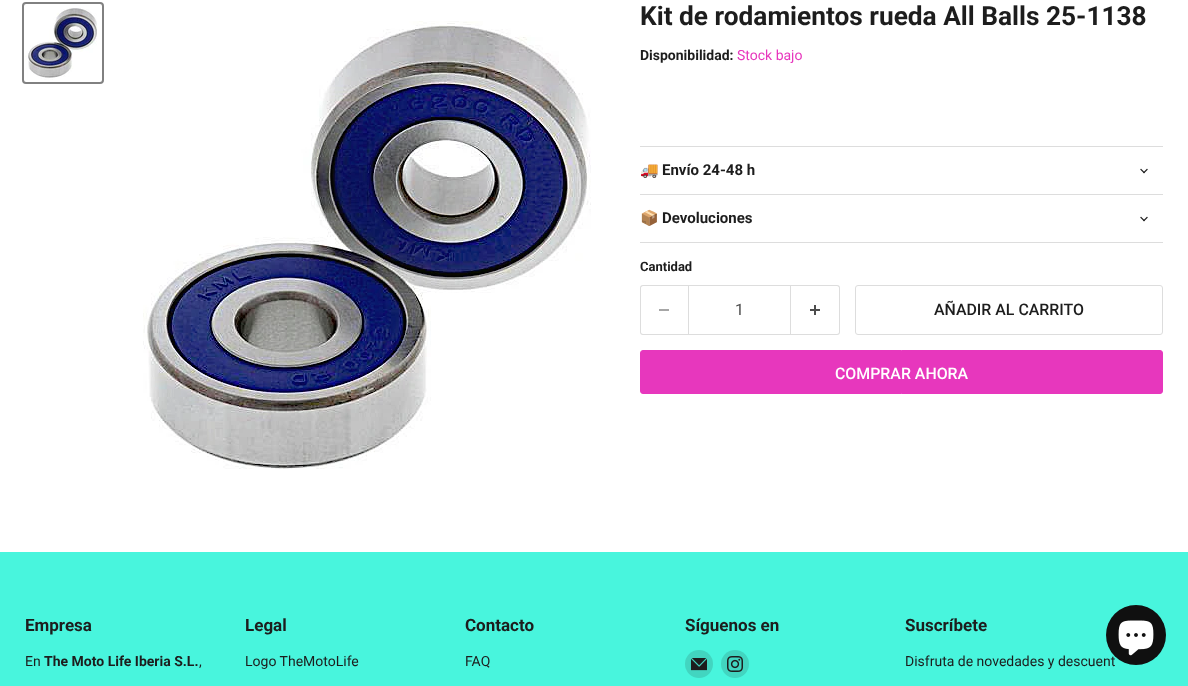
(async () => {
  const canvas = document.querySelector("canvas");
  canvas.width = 1188;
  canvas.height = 686;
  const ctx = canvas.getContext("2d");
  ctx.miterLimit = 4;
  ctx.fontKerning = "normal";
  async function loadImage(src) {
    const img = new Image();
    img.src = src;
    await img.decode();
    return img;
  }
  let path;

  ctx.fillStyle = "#ffffff";
  ctx.fillRect(0, 0, 1188, 686);
  ctx.beginPath();
  ctx.roundRect(23, 3, 80, 80, 3);
  ctx.strokeStyle = "#818181";
  ctx.lineWidth = 2;
  ctx.stroke();
  ctx.drawImage(await loadImage("img/1.png"), 25, 8, 72, 72);
  ctx.drawImage(await loadImage("img/2.png"), 143, 21, 448, 448);
  ctx.fillStyle = "#dddddd";
  ctx.fillRect(640, 146, 523, 1);
  ctx.fillRect(640, 194, 523, 1);
  ctx.drawImage(await loadImage("img/3.png"), 1140, 168, 8, 6);
  ctx.fillRect(640, 242, 523, 1);
  ctx.drawImage(await loadImage("img/3.png"), 1140, 216, 8, 6);
  path = new Path2D("M643 285H688V335H643C641 335 640 334 640 332V288C640 286 641 285 643 285ZM643 286H688V334H643C642 334 641 333 641 332V288C641 287 642 286 643 286Z");
  ctx.fill(path, "evenodd");
  ctx.fillStyle = "#a6a6a6";
  ctx.fillRect(659, 309, 10, 2);
  ctx.strokeStyle = "#dddddd";
  ctx.lineWidth = 1;
  ctx.strokeRect(688.5, 285.5, 102, 49);
  ctx.fillStyle = "#dddddd";
  path = new Path2D("M791 285H837C839 285 840 286 840 288V332C840 334 839 335 837 335H791ZM791 286H837C838 286 839 287 839 288V332C839 333 838 334 837 334H791Z");
  ctx.fill(path, "evenodd");
  ctx.drawImage(await loadImage("img/4.png"), 810, 305, 10, 10);
  ctx.beginPath();
  ctx.roundRect(855.5, 285.5, 307, 49, 2.5);
  ctx.stroke();
  ctx.fillStyle = "#e737bd";
  ctx.beginPath();
  ctx.roundRect(640.5, 350.5, 522, 43, 2.5);
  ctx.fill();
  ctx.strokeStyle = "#e737bd";
  ctx.stroke();
  ctx.fillStyle = "#48f5dd";
  ctx.fillRect(0, 552, 1188, 134);
  ctx.fillStyle = "#42d5c0";
  ctx.beginPath();
  ctx.arc(699, 664, 14, 0, Math.PI * 2);
  ctx.fill();
  ctx.drawImage(await loadImage("img/5.png"), 691, 658, 16, 13);
  ctx.beginPath();
  ctx.arc(735, 664, 14, 0, Math.PI * 2);
  ctx.fill();
  ctx.drawImage(await loadImage("img/6.png"), 727, 656, 16, 16);
  ctx.font = "bold 26.25px Roboto";
  ctx.fillStyle = "#1d1d1d";
  ctx.fillText("Kit de rodamientos rueda All Balls 25-1138", 640, 25);
  ctx.font = "bold 14px Roboto";
  ctx.fillText("Disponibilidad:", 640, 60);
  ctx.font = "14px Roboto";
  ctx.fillStyle = "#e737bd";
  ctx.fillText("Stock bajo", 737, 60);
  ctx.font = "bold 15px Noto Color Emoji";
  ctx.fillStyle = "#1d1d1d";
  ctx.fillText("🚚", 640, 175);
  ctx.font = "bold 15px Roboto";
  ctx.fillText("Envío 24-48 h", 662, 175);
  ctx.font = "bold 15px Noto Color Emoji";
  ctx.fillText("📦", 640, 223);
  ctx.font = "bold 15px Roboto";
  ctx.fillText("Devoluciones", 662, 223);
  ctx.font = "bold 13px Roboto";
  ctx.fillText("Cantidad", 640, 271);
  ctx.font = "15.9px Roboto";
  ctx.fillStyle = "#4d4d4d";
  ctx.fillText("1", 735, 315);
  ctx.font = "500 15.9px Roboto";
  ctx.fillStyle = "#1d1d1d";
  ctx.fillText("AÑADIR AL CARRITO", 934, 315);
  ctx.fillStyle = "#ffffff";
  ctx.fillText("COMPRAR AHORA", 835, 379);
  ctx.font = "bold 17px Roboto";
  ctx.fillStyle = "#1d1d1d";
  ctx.fillText("Empresa", 25, 631);
  ctx.font = "14px Roboto";
  ctx.fillText("En", 25, 666);
  ctx.font = "bold 14px Roboto";
  ctx.fillText("The Moto Life Iberia S.L.", 44, 666);
  ctx.font = "14px Roboto";
  ctx.fillText(",", 199, 666);
  ctx.font = "bold 17px Roboto";
  ctx.fillText("Legal", 245, 631);
  ctx.font = "14px Roboto";
  ctx.fillText("Logo TheMotoLife", 245, 666);
  ctx.font = "bold 17px Roboto";
  ctx.fillText("Contacto", 465, 631);
  ctx.font = "14px Roboto";
  ctx.fillText("FAQ", 465, 666);
  ctx.font = "bold 17px Roboto";
  ctx.fillText("Síguenos en", 685, 631);
  ctx.fillText("Suscríbete", 905, 631);
  ctx.font = "14px Roboto";
  ctx.fillText("Disfruta de novedades y descuent", 905, 666);
  ctx.fillStyle = "#101010";
  ctx.beginPath();
  ctx.arc(1136, 635, 30, 0, Math.PI * 2);
  ctx.fill();
  ctx.drawImage(await loadImage("img/7.png"), 1118, 620, 36, 36);
})();
